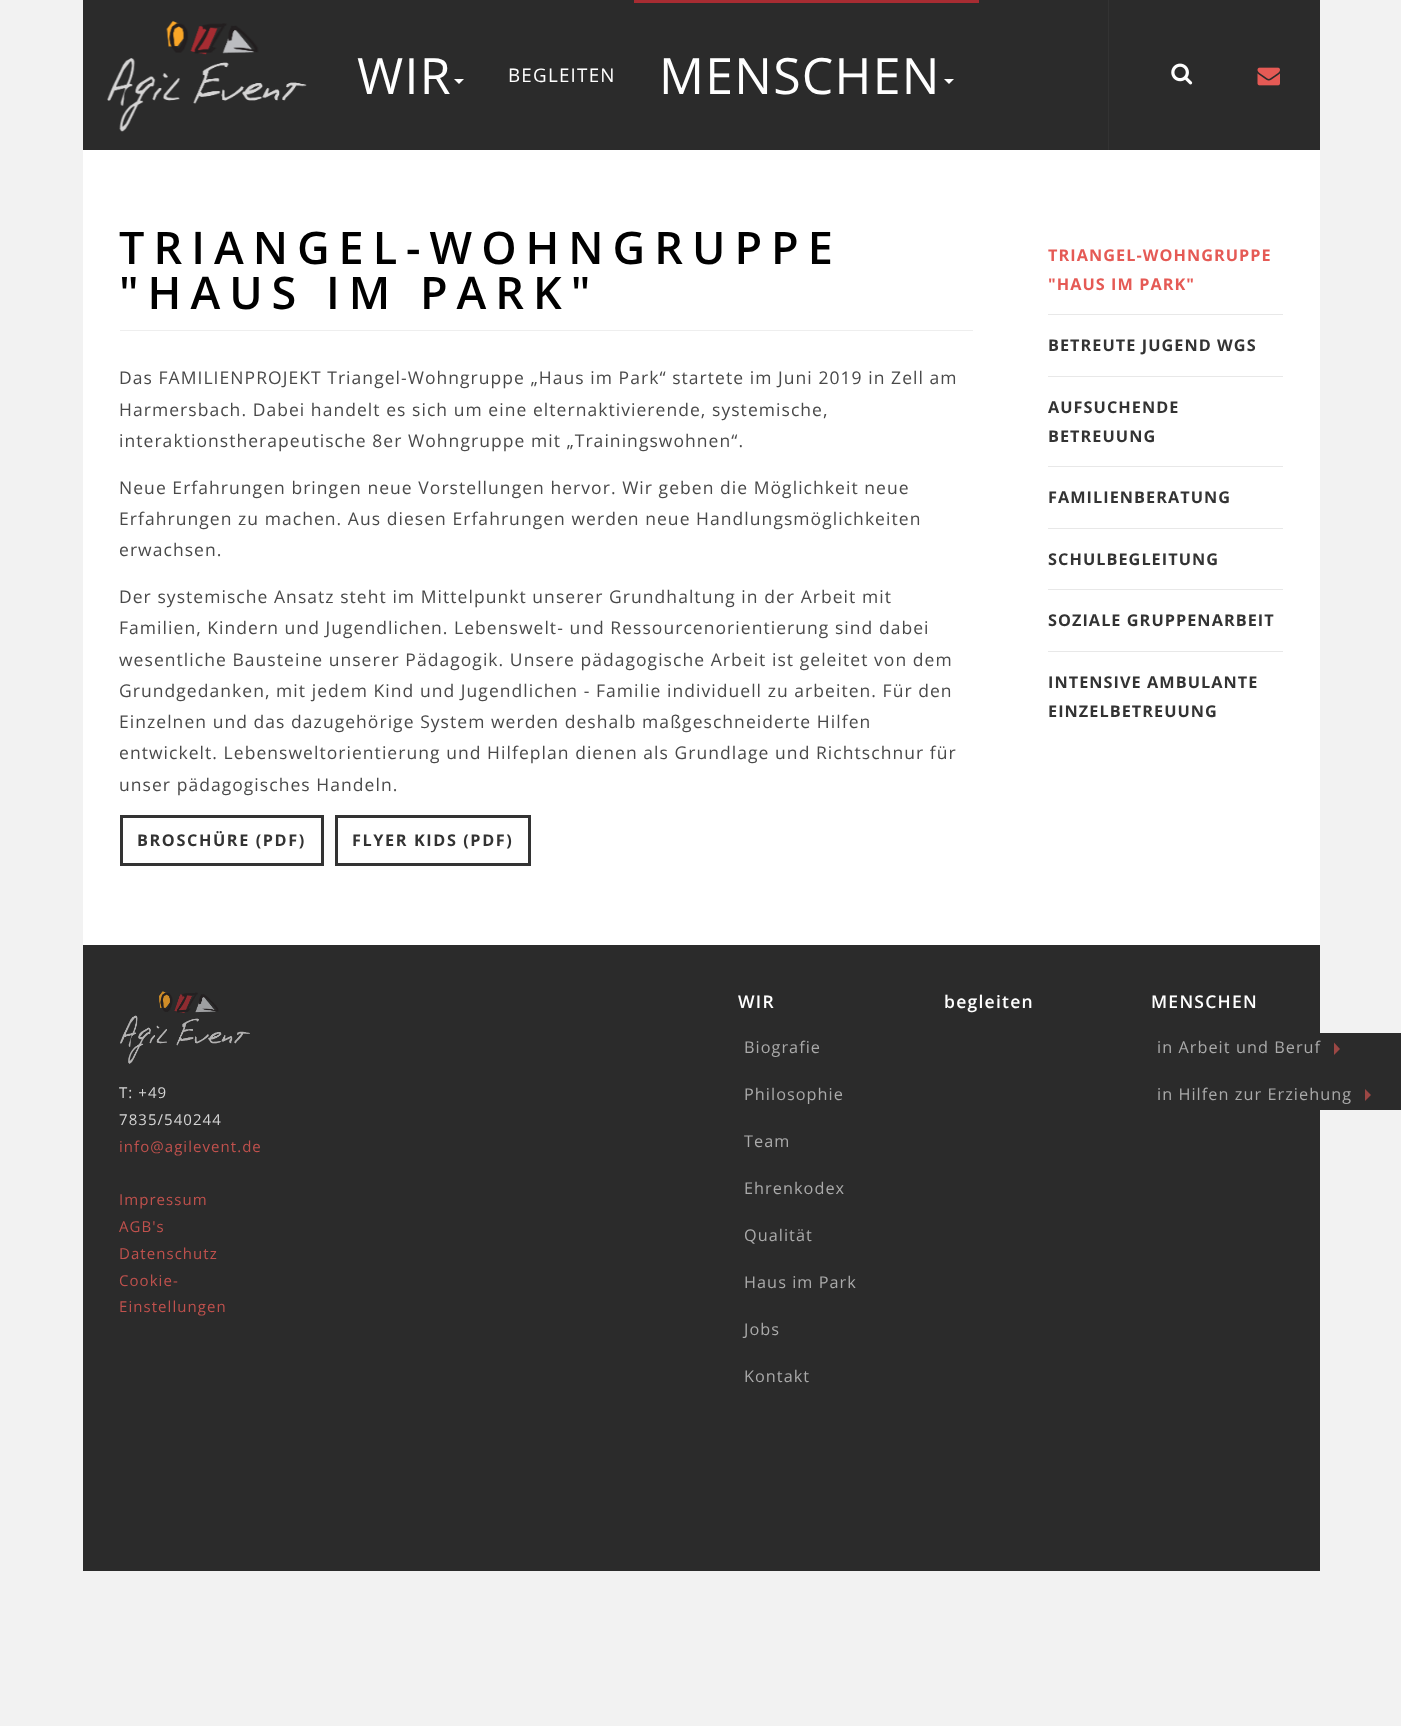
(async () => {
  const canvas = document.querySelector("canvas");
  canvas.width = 1401;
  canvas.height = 1726;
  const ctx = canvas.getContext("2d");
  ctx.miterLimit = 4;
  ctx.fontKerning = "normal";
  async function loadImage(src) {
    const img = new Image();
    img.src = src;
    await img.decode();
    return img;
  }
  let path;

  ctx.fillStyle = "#f2f2f2";
  ctx.fillRect(0, 0, 1401, 1726);
  ctx.fillStyle = "#2b2b2b";
  ctx.fillRect(83, 0, 1237, 150);
  ctx.drawImage(await loadImage("img/1.png"), 107, 21, 200, 111);
  ctx.fillStyle = "#ffffff";
  path = new Path2D("M454 79H464L459 84Z");
  ctx.fill(path);
  ctx.fillStyle = "#a72c32";
  ctx.fillRect(634, 0, 345, 3);
  ctx.fillStyle = "#ffffff";
  path = new Path2D("M944 79H954L949 84Z");
  ctx.fill(path);
  ctx.fillStyle = "#333333";
  ctx.fillRect(1108, 0, 1, 150);
  ctx.drawImage(await loadImage("img/2.png"), 1171, 63, 22, 22);
  ctx.drawImage(await loadImage("img/3.png"), 1257, 67, 23, 19);
  ctx.fillStyle = "#ffffff";
  ctx.fillRect(83, 150, 1237, 795);
  ctx.fillStyle = "#eeeeee";
  ctx.fillRect(120, 330, 853, 1);
  ctx.strokeStyle = "#333333";
  ctx.lineWidth = 3;
  ctx.strokeRect(121.5, 816.5, 201, 48);
  ctx.strokeRect(336.5, 816.5, 193, 48);
  for (const [x, y, w, h, color] of [
    [1048, 314, 235, 1, "#e8e8e8"],
    [1048, 376, 235, 1, "#e8e8e8"],
    [1048, 466, 235, 1, "#e8e8e8"],
    [1048, 528, 235, 1, "#e8e8e8"],
    [1048, 589, 235, 1, "#e8e8e8"],
    [1048, 651, 235, 1, "#e8e8e8"],
    [83, 945, 1237, 626, "#2b2b2b"],
    [1320, 1033, 81, 77, "#2b2b2b"],
  ]) {
    ctx.fillStyle = color;
    ctx.fillRect(x, y, w, h);
  }
  ctx.fillStyle = "#9b4744";
  path = new Path2D("M1334 1055V1042.5L1340 1049Z");
  ctx.fill(path);
  path = new Path2D("M1365 1101V1089L1371 1095Z");
  ctx.fill(path);
  ctx.drawImage(await loadImage("img/4.png"), 120, 991, 130, 73);
  ctx.letterSpacing = "1.25px";
  ctx.font = "50px Open Sans";
  ctx.fillStyle = "#ffffff";
  ctx.fillText("WIR", 357, 94);
  ctx.font = "18.75px Open Sans";
  ctx.fillText("BEGLEITEN", 508, 82);
  ctx.font = "50px Open Sans";
  ctx.fillText("MENSCHEN", 659, 94);
  ctx.letterSpacing = "9px";
  ctx.font = "600 45px Open Sans";
  ctx.fillStyle = "#000000";
  ctx.fillText("TRIANGEL-WOHNGRUPPE", 119, 264);
  ctx.fillText("\"HAUS IM PARK\"", 119, 309);
  ctx.letterSpacing = "1.05px";
  ctx.font = "17.5px Open Sans";
  ctx.fillStyle = "#494949";
  for (const [text, x, y] of [
    ["Das FAMILIENPROJEKT Triangel-Wohngruppe „Haus im Park“ startete im Juni 2019 in Zell am", 119, 384],
    ["Harmersbach. Dabei handelt es sich um eine elternaktivierende, systemische,", 119, 416],
    ["interaktionstherapeutische 8er Wohngruppe mit „Trainingswohnen“.", 119, 447],
    ["Neue Erfahrungen bringen neue Vorstellungen hervor. Wir geben die Möglichkeit neue", 119, 494],
    ["Erfahrungen zu machen. Aus diesen Erfahrungen werden neue Handlungsmöglichkeiten", 119, 525],
    ["erwachsen.", 119, 556],
    ["Der systemische Ansatz steht im Mittelpunkt unserer Grundhaltung in der Arbeit mit", 119, 603],
    ["Familien, Kindern und Jugendlichen. Lebenswelt- und Ressourcenorientierung sind dabei", 119, 634],
    ["wesentliche Bausteine unserer Pädagogik. Unsere pädagogische Arbeit ist geleitet von dem", 119, 666],
    ["Grundgedanken, mit jedem Kind und Jugendlichen - Familie individuell zu arbeiten. Für den", 119, 697],
    ["Einzelnen und das dazugehörige System werden deshalb maßgeschneiderte Hilfen", 119, 728],
    ["entwickelt. Lebensweltorientierung und Hilfeplan dienen als Grundlage und Richtschnur für", 119, 759],
    ["unser pädagogisches Handeln.", 119, 791],
  ]) {
    ctx.fillText(text, x, y);
  }
  ctx.letterSpacing = "1.6px";
  ctx.font = "bold 16.25px Open Sans";
  ctx.fillStyle = "#333333";
  ctx.fillText("BROSCHÜRE (PDF)", 137, 846);
  ctx.fillText("FLYER KIDS (PDF)", 352, 846);
  ctx.letterSpacing = "1.05px";
  ctx.fillStyle = "#e55a55";
  ctx.fillText("TRIANGEL-WOHNGRUPPE", 1048, 261);
  ctx.fillText("\"HAUS IM PARK\"", 1048, 290);
  ctx.fillStyle = "#333333";
  for (const [text, x, y] of [
    ["BETREUTE JUGEND WGS", 1048, 351],
    ["AUFSUCHENDE", 1048, 413],
    ["BETREUUNG", 1048, 442],
    ["FAMILIENBERATUNG", 1048, 503],
    ["SCHULBEGLEITUNG", 1048, 565],
    ["SOZIALE GRUPPENARBEIT", 1048, 626],
    ["INTENSIVE AMBULANTE", 1048, 688],
    ["EINZELBETREUUNG", 1048, 717],
  ]) {
    ctx.fillText(text, x, y);
  }
  ctx.letterSpacing = "1.25px";
  ctx.font = "600 17.5px Open Sans";
  ctx.fillStyle = "#ffffff";
  ctx.fillText("WIR", 738, 1008);
  ctx.letterSpacing = "1.05px";
  ctx.font = "16.25px Open Sans";
  ctx.fillStyle = "#aaaaaa";
  for (const [text, x, y] of [
    ["Biografie", 744, 1053],
    ["Philosophie", 744, 1100],
    ["Team", 744, 1147],
    ["Ehrenkodex", 744, 1194],
    ["Qualität", 744, 1241],
    ["Haus im Park", 744, 1288],
    ["Jobs", 744, 1335],
    ["Kontakt", 744, 1382],
  ]) {
    ctx.fillText(text, x, y);
  }
  ctx.letterSpacing = "1.25px";
  ctx.font = "600 17.5px Open Sans";
  ctx.fillStyle = "#ffffff";
  ctx.fillText("begleiten", 944, 1008);
  ctx.fillText("MENSCHEN", 1151, 1008);
  ctx.letterSpacing = "1.05px";
  ctx.font = "16.25px Open Sans";
  ctx.fillStyle = "#aaaaaa";
  ctx.fillText("in Arbeit und Beruf", 1157, 1053);
  ctx.fillText("in Hilfen zur Erziehung", 1157, 1100);
  ctx.font = "15px Open Sans";
  ctx.fillStyle = "#d5d5d5";
  ctx.fillText("T: +49", 119, 1098);
  ctx.fillText("7835/540244", 119, 1125);
  ctx.fillStyle = "#c0514d";
  for (const [text, x, y] of [
    ["info@agilevent.de", 119, 1152],
    ["Impressum", 119, 1205],
    ["AGB's", 119, 1232],
    ["Datenschutz", 119, 1259],
    ["Cookie-", 119, 1286],
    ["Einstellungen", 119, 1312],
  ]) {
    ctx.fillText(text, x, y);
  }
})();
